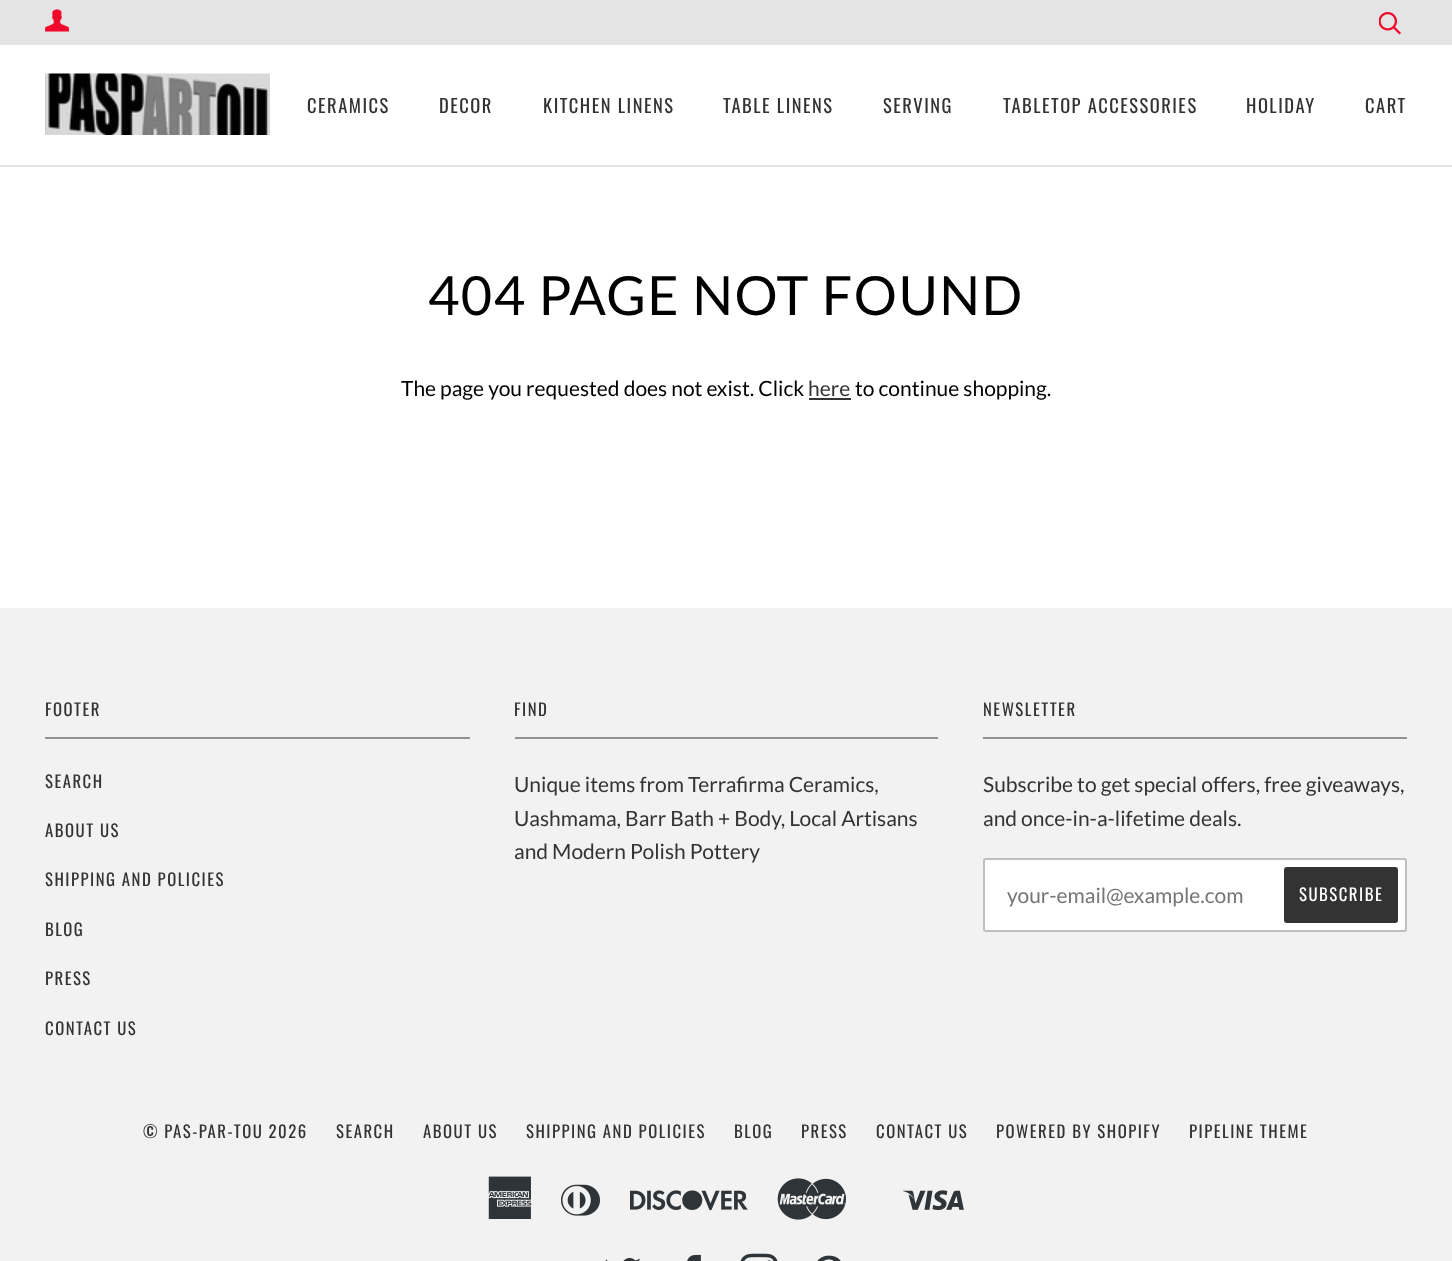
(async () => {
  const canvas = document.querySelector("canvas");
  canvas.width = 1452;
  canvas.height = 1261;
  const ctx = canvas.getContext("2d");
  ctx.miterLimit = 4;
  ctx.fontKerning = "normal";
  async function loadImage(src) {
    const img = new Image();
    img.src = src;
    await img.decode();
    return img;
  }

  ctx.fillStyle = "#ffffff";
  ctx.fillRect(0, 0, 1452, 1261);
  ctx.fillStyle = "#e4e4e4";
  ctx.fillRect(0, 0, 1452, 45);
  ctx.drawImage(await loadImage("img/1.png"), 45, 9, 24, 23);
  ctx.drawImage(await loadImage("img/2.png"), 1379, 12, 22, 23);
  ctx.fillRect(0, 165, 1452, 2);
  ctx.drawImage(await loadImage("img/3.png"), 45, 73, 225, 62);
  for (const [x, y, w, h, color] of [
    [809, 398, 42, 2, "#333333"],
    [0, 608, 1452, 653, "#f2f2f2"],
    [45, 737, 425, 2, "#939393"],
    [515, 737, 423, 2, "#939393"],
    [983, 737, 424, 2, "#939393"],
  ]) {
    ctx.fillStyle = color;
    ctx.fillRect(x, y, w, h);
  }
  ctx.fillStyle = "#ffffff";
  ctx.beginPath();
  ctx.roundRect(984, 859, 422, 72, 2);
  ctx.fill();
  ctx.strokeStyle = "#bfbfbf";
  ctx.lineWidth = 2;
  ctx.stroke();
  ctx.fillStyle = "#333333";
  ctx.beginPath();
  ctx.roundRect(1284, 867, 114, 56, 3);
  ctx.fill();
  ctx.drawImage(await loadImage("img/4.png"), 488, 1176, 44, 43);
  ctx.drawImage(await loadImage("img/5.png"), 561, 1184, 39, 32);
  ctx.drawImage(await loadImage("img/6.png"), 630, 1190, 118, 21);
  ctx.drawImage(await loadImage("img/7.png"), 777, 1178, 69, 42);
  ctx.drawImage(await loadImage("img/8.png"), 903, 1190, 61, 20);
  ctx.drawImage(await loadImage("img/9.png"), 605, 1258, 35, 3);
  ctx.drawImage(await loadImage("img/10.png"), 687, 1254, 14, 7);
  ctx.drawImage(await loadImage("img/11.png"), 740, 1253, 38, 8);
  ctx.drawImage(await loadImage("img/12.png"), 817, 1255, 24, 6);
  ctx.letterSpacing = "1.5px";
  ctx.font = "18.5px Oswald";
  for (const [text, x, y] of [
    ["CERAMICS", 307, 113],
    ["DECOR", 439, 113],
    ["KITCHEN LINENS", 543, 113],
    ["TABLE LINENS", 723, 113],
    ["SERVING", 883, 113],
    ["TABLETOP ACCESSORIES", 1003, 113],
    ["HOLIDAY", 1246, 113],
    ["CART", 1365, 113],
  ]) {
    ctx.fillText(text, x, y);
  }
  ctx.font = "54px Lato";
  ctx.fillStyle = "#000000";
  ctx.fillText("404 PAGE NOT FOUND", 428, 315);
  ctx.letterSpacing = "0px";
  ctx.font = "21px Lato";
  ctx.fillText("The page you requested does not exist. Click", 401, 396);
  ctx.fillStyle = "#333333";
  ctx.fillText("here", 808, 396);
  ctx.fillStyle = "#000000";
  ctx.fillText("to continue shopping.", 855, 396);
  ctx.letterSpacing = "1.5px";
  ctx.font = "16.75px Oswald";
  ctx.fillStyle = "#333333";
  for (const [text, x, y] of [
    ["FOOTER", 45, 716],
    ["SEARCH", 45, 788],
    ["ABOUT US", 45, 837],
    ["SHIPPING AND POLICIES", 45, 886],
    ["BLOG", 45, 936],
    ["PRESS", 45, 985],
    ["CONTACT US", 45, 1035],
    ["FIND", 514, 716],
  ]) {
    ctx.fillText(text, x, y);
  }
  ctx.letterSpacing = "0px";
  ctx.font = "21px Lato";
  for (const [text, x, y] of [
    ["Unique items from Terrafirma Ceramics,", 514, 792],
    ["Uashmama, Barr Bath + Body, Local Artisans", 514, 826],
    ["and Modern Polish Pottery", 514, 859],
  ]) {
    ctx.fillText(text, x, y);
  }
  ctx.letterSpacing = "1.5px";
  ctx.font = "16.75px Oswald";
  ctx.fillText("NEWSLETTER", 983, 716);
  ctx.letterSpacing = "0px";
  ctx.font = "21px Lato";
  ctx.fillText("Subscribe to get special offers, free giveaways,", 983, 792);
  ctx.fillText("and once-in-a-lifetime deals.", 983, 826);
  ctx.fillStyle = "#757575";
  ctx.fillText("your-email@example.com", 1007, 903);
  ctx.letterSpacing = "1.5px";
  ctx.font = "16.75px Oswald";
  ctx.fillStyle = "#ffffff";
  ctx.fillText("SUBSCRIBE", 1299, 901);
  ctx.fillStyle = "#333333";
  for (const [text, x, y] of [
    ["© PAS-PAR-TOU 2026", 143, 1138],
    ["SEARCH", 336, 1138],
    ["ABOUT US", 423, 1138],
    ["SHIPPING AND POLICIES", 526, 1138],
    ["BLOG", 734, 1138],
    ["PRESS", 801, 1138],
    ["CONTACT US", 876, 1138],
    ["POWERED BY SHOPIFY", 996, 1138],
    ["PIPELINE THEME", 1189, 1138],
  ]) {
    ctx.fillText(text, x, y);
  }
})();
